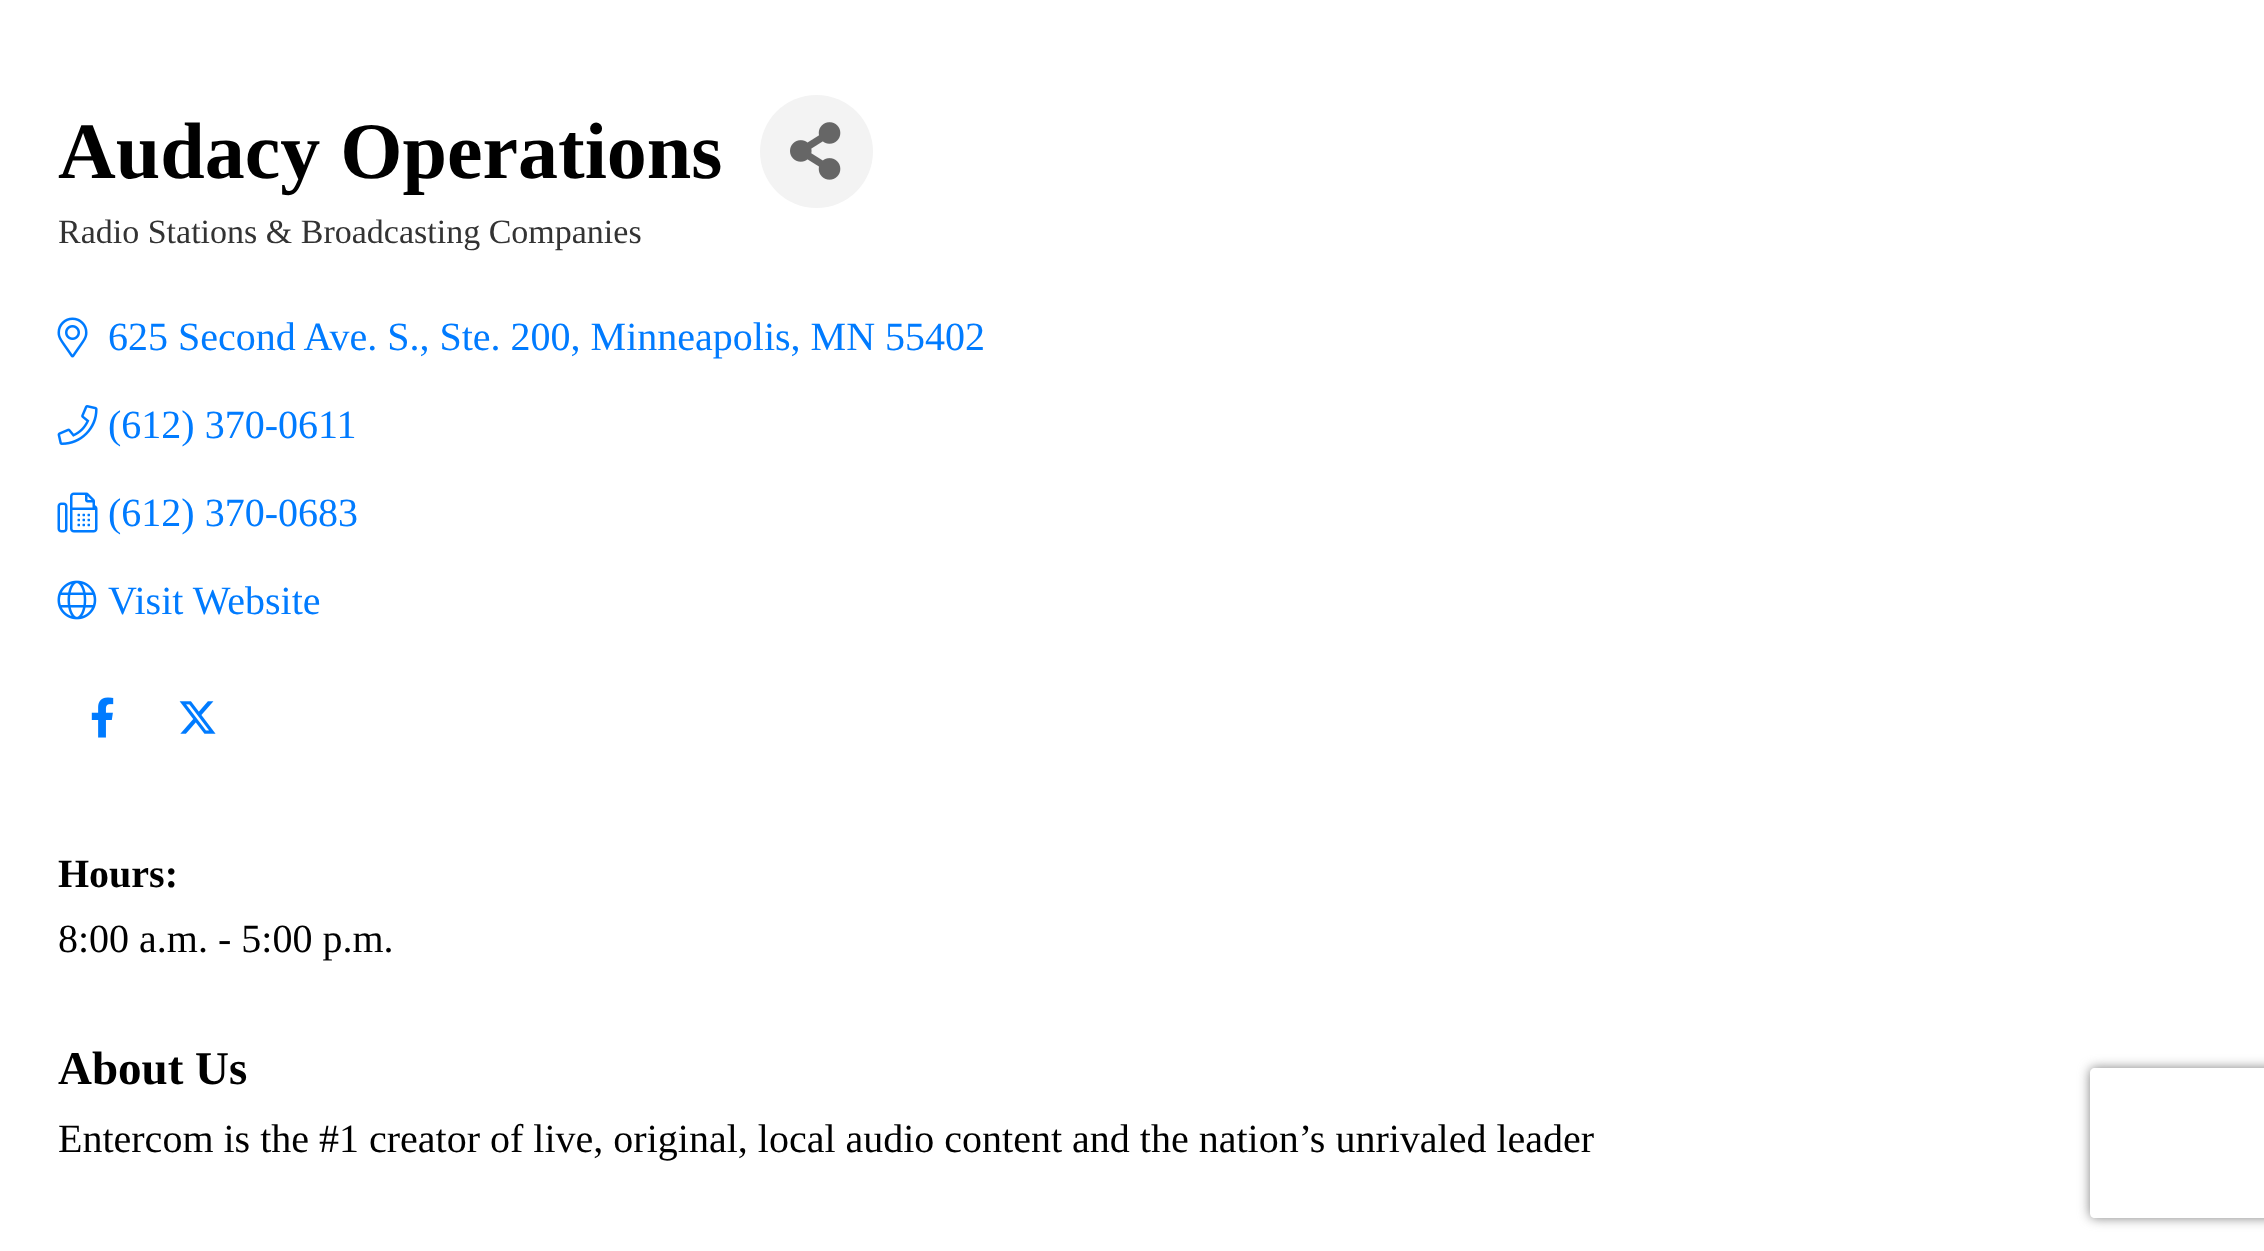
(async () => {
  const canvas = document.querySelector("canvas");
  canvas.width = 2264;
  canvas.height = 1251;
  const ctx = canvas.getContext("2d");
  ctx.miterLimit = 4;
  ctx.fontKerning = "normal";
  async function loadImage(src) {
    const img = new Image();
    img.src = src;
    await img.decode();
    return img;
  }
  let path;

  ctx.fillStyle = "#ffffff";
  ctx.fillRect(0, 0, 2264, 1251);
  ctx.fillStyle = "#f3f3f3";
  ctx.beginPath();
  ctx.arc(816.5, 151.5, 56.5, 0, Math.PI * 2);
  ctx.fill();
  ctx.drawImage(await loadImage("img/1.png"), 790, 122, 51, 58);
  ctx.drawImage(await loadImage("img/2.png"), 57, 317, 31, 41);
  ctx.drawImage(await loadImage("img/3.png"), 57, 405, 41, 40);
  ctx.drawImage(await loadImage("img/4.png"), 57, 492, 41, 41);
  ctx.drawImage(await loadImage("img/5.png"), 57, 580, 40, 40);
  ctx.drawImage(await loadImage("img/6.png"), 91, 697, 23, 41);
  ctx.drawImage(await loadImage("img/7.png"), 179, 701, 37, 33);
  ctx.save();
  path = new Path2D("M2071 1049H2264V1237H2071ZM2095 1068H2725C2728 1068 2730 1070 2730 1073V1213C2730 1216 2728 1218 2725 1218H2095C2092 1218 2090 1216 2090 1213V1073C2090 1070 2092 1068 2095 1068Z");
  ctx.clip(path, "evenodd");
  ctx.fillStyle = "#808080";
  ctx.filter = "blur(6px)";
  ctx.beginPath();
  ctx.roundRect(2090, 1068, 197, 150, 5);
  ctx.fill();
  ctx.filter = "none";
  ctx.restore();
  ctx.font = "bold 80px Liberation Serif";
  ctx.fillStyle = "#000000";
  ctx.fillText("Audacy Operations", 58, 178);
  ctx.font = "34px Liberation Serif";
  ctx.fillStyle = "#333333";
  ctx.fillText("Radio Stations & Broadcasting Companies", 58, 243);
  ctx.font = "40px Liberation Serif";
  ctx.fillStyle = "#007bff";
  for (const [text, x, y] of [
    ["625 Second Ave. S., Ste. 200, Minneapolis, MN 55402", 108, 350],
    ["(612) 370-0611", 108, 438],
    ["(612) 370-0683", 108, 526],
    ["Visit Website", 108, 614],
  ]) {
    ctx.fillText(text, x, y);
  }
  ctx.font = "bold 40px Liberation Serif";
  ctx.fillStyle = "#000000";
  ctx.fillText("Hours:", 58, 887);
  ctx.font = "40px Liberation Serif";
  ctx.fillText("8:00 a.m. - 5:00 p.m.", 58, 952);
  ctx.font = "bold 47px Liberation Serif";
  ctx.fillText("About Us", 58, 1084);
  ctx.font = "40px Liberation Serif";
  ctx.fillText("Entercom is the #1 creator of live, original, local audio content and the nation’s unrivaled leader", 58, 1152);
})();
